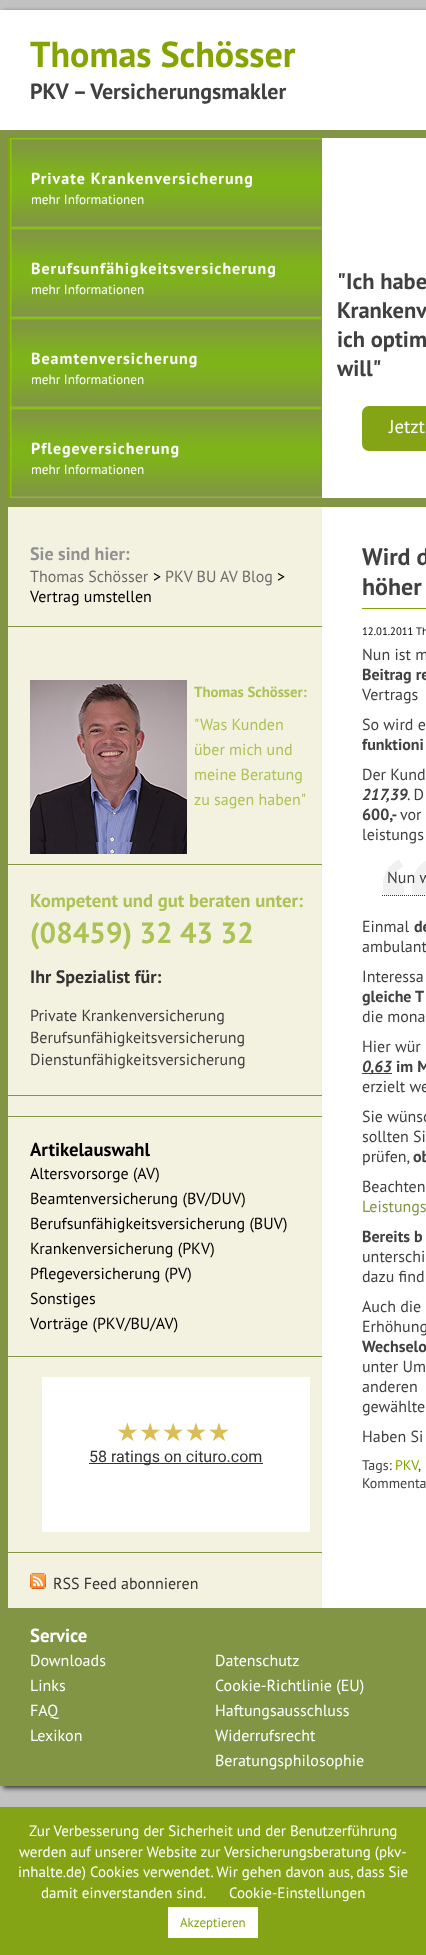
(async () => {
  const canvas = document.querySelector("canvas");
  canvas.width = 426;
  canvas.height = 1955;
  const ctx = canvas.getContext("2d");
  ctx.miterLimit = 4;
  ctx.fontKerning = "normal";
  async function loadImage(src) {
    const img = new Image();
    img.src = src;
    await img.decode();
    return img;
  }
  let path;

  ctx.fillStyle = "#c2c2c2";
  ctx.fillRect(0, 0, 426, 1955);
  ctx.fillStyle = "#2e2e2e";
  ctx.filter = "blur(2.5px)";
  ctx.beginPath();
  ctx.rect(3, 12, 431, 1776);
  ctx.fill();
  ctx.filter = "none";
  for (const [x, y, w, h, color] of [
    [0, 130, 426, 1656, "#819545"],
    [0, 10, 426, 120, "#ffffff"],
    [8, 138, 314, 360, "#84a416"],
  ]) {
    ctx.fillStyle = color;
    ctx.fillRect(x, y, w, h);
  }
  ctx.drawImage(await loadImage("img/1.png"), 10, 138, 311, 90);
  ctx.drawImage(await loadImage("img/1.png"), 10, 228, 311, 90);
  ctx.drawImage(await loadImage("img/1.png"), 10, 318, 311, 90);
  ctx.drawImage(await loadImage("img/1.png"), 10, 408, 311, 90);
  ctx.fillStyle = "#ffffff";
  ctx.fillRect(322, 138, 104, 360);
  ctx.fillStyle = "#84a416";
  ctx.beginPath();
  ctx.roundRect(362, 406, 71, 45, 7);
  ctx.fill();
  for (const [x, y, w, h, color] of [
    [322, 507, 104, 1101, "#ffffff"],
    [8, 507, 314, 1101, "#f3f2e0"],
    [8, 626, 314, 1, "#819545"],
    [8, 864, 314, 1, "#819545"],
  ]) {
    ctx.fillStyle = color;
    ctx.fillRect(x, y, w, h);
  }
  ctx.drawImage(await loadImage("img/2.png"), 30, 680, 157, 174);
  for (const [x, y, w, h, color] of [
    [8, 1095, 314, 1, "#819545"],
    [8, 1116, 314, 1, "#819545"],
    [8, 1356, 314, 1, "#819545"],
    [8, 1552, 314, 1, "#819545"],
    [42, 1377, 268, 155, "#ffffff"],
    [89, 1463, 174, 1, "#333333"],
  ]) {
    ctx.fillStyle = color;
    ctx.fillRect(x, y, w, h);
  }
  ctx.drawImage(await loadImage("img/3.png"), 30, 1573, 16, 16);
  ctx.fillStyle = "#84a402";
  ctx.fillRect(362, 608, 64, 1);
  ctx.drawImage(await loadImage("img/4.png"), 383, 860, 43, 36);
  path = new Path2D("M382 895.5H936");
  ctx.strokeStyle = "#3a3a3a";
  ctx.setLineDash([1, 1]);
  ctx.stroke(path);
  for (const [x, y, w, h, color] of [
    [362, 1073, 30, 1, "#404040"],
    [0, 1807, 426, 148, "#84a416"],
    [168, 1907, 90, 31, "#ffffff"],
  ]) {
    ctx.fillStyle = color;
    ctx.fillRect(x, y, w, h);
  }
  ctx.font = "bold 36px PT Sans";
  ctx.fillStyle = "#84a402";
  ctx.fillText("Thomas Schösser", 30, 67);
  ctx.font = "bold 22px PT Sans";
  ctx.fillStyle = "#404040";
  ctx.fillText("PKV – Versicherungsmakler", 30, 99);
  ctx.letterSpacing = "1px";
  ctx.font = "bold 16px PT Sans";
  ctx.fillStyle = "#ffffff";
  ctx.fillText("Private Krankenversicherung", 31, 184);
  ctx.letterSpacing = "0px";
  ctx.font = "13.25px PT Sans";
  ctx.fillText("mehr Informationen", 31, 204);
  ctx.letterSpacing = "1px";
  ctx.font = "bold 16px PT Sans";
  ctx.fillText("Berufsunfähigkeitsversicherung", 31, 274);
  ctx.letterSpacing = "0px";
  ctx.font = "13.25px PT Sans";
  ctx.fillText("mehr Informationen", 31, 294);
  ctx.letterSpacing = "1px";
  ctx.font = "bold 16px PT Sans";
  ctx.fillText("Beamtenversicherung", 31, 364);
  ctx.letterSpacing = "0px";
  ctx.font = "13.25px PT Sans";
  ctx.fillText("mehr Informationen", 31, 384);
  ctx.letterSpacing = "1px";
  ctx.font = "bold 16px PT Sans";
  ctx.fillText("Pflegeversicherung", 31, 454);
  ctx.letterSpacing = "0px";
  ctx.font = "13.25px PT Sans";
  ctx.fillText("mehr Informationen", 31, 474);
  ctx.font = "bold 22.5px PT Sans";
  ctx.fillStyle = "#404040";
  for (const [text, x, y] of [
    ["\"Ich habe", 337, 289],
    ["Krankenv", 337, 318],
    ["ich optim", 337, 347],
    ["will\"", 337, 376],
  ]) {
    ctx.fillText(text, x, y);
  }
  ctx.font = "18.7px PT Sans";
  ctx.fillStyle = "#ffffff";
  ctx.fillText("Jetzt", 389, 433);
  ctx.font = "bold 18px PT Sans";
  ctx.fillStyle = "#929292";
  ctx.fillText("Sie sind hier:", 30, 560);
  ctx.font = "16px PT Sans";
  ctx.fillStyle = "#6c6c6c";
  ctx.fillText("Thomas Schösser", 30, 582);
  ctx.fillStyle = "#000000";
  ctx.fillText(">", 153, 582);
  ctx.fillStyle = "#6c6c6c";
  ctx.fillText("PKV BU AV Blog", 165, 582);
  ctx.fillStyle = "#000000";
  ctx.fillText(">", 277, 582);
  ctx.fillText("Vertrag umstellen", 30, 602);
  ctx.font = "bold 14.75px PT Sans";
  ctx.fillStyle = "#adc256";
  ctx.fillText("Thomas Schösser:", 194, 697);
  ctx.font = "16px PT Sans";
  for (const [text, x, y] of [
    ["\"Was Kunden", 194, 730],
    ["über mich und", 194, 755],
    ["meine Beratung", 194, 780],
    ["zu sagen haben\"", 194, 805],
  ]) {
    ctx.fillText(text, x, y);
  }
  ctx.font = "bold 18.7px PT Sans";
  ctx.fillText("Kompetent und gut beraten unter:", 30, 907);
  ctx.font = "bold 29.25px PT Sans";
  ctx.fillText("(08459) 32 43 32", 30, 943);
  ctx.font = "bold 18px PT Sans";
  ctx.fillStyle = "#333333";
  ctx.fillText("Ihr Spezialist für:", 30, 983);
  ctx.font = "16px PT Sans";
  ctx.fillStyle = "#404040";
  for (const [text, x, y] of [
    ["Private Krankenversicherung", 30, 1021],
    ["Berufsunfähigkeitsversicherung", 30, 1043],
    ["Dienstunfähigkeitsversicherung", 30, 1065],
  ]) {
    ctx.fillText(text, x, y);
  }
  ctx.font = "bold 18.75px PT Sans";
  ctx.fillStyle = "#000000";
  ctx.fillText("Artikelauswahl", 30, 1156);
  ctx.font = "16px PT Sans";
  for (const [text, x, y] of [
    ["Altersvorsorge (AV)", 30, 1179],
    ["Beamtenversicherung (BV/DUV)", 30, 1204],
    ["Berufsunfähigkeitsversicherung (BUV)", 30, 1229],
    ["Krankenversicherung (PKV)", 30, 1254],
    ["Pflegeversicherung (PV)", 30, 1279],
    ["Sonstiges", 30, 1304],
    ["Vorträge (PKV/BU/AV)", 30, 1329],
  ]) {
    ctx.fillText(text, x, y);
  }
  ctx.font = "25.5px DejaVu Sans";
  ctx.fillStyle = "#dbbc57";
  ctx.fillText("★★★★★", 116, 1441);
  ctx.font = "16px Roboto";
  ctx.fillStyle = "#333333";
  ctx.fillText("58 ratings on cituro.com", 89, 1462);
  ctx.font = "16px PT Sans";
  ctx.fillText("RSS Feed abonnieren", 53, 1589);
  ctx.font = "bold 24px PT Sans";
  ctx.fillStyle = "#404040";
  ctx.fillText("Wird d", 362, 565);
  ctx.fillText("höher", 362, 595);
  ctx.font = "10.75px PT Sans";
  ctx.fillStyle = "#000000";
  ctx.fillText("12.01.2011 Th", 362, 635);
  ctx.font = "16px PT Sans";
  ctx.fillStyle = "#404040";
  ctx.fillText("Nun ist m", 362, 660);
  ctx.font = "bold 16px PT Sans";
  ctx.fillText("Beitrag re", 362, 680);
  ctx.font = "16px PT Sans";
  ctx.fillText("Vertrags", 362, 700);
  ctx.fillText("So wird e", 362, 730);
  ctx.font = "bold 16px PT Sans";
  ctx.fillText("funktioni", 362, 750);
  ctx.font = "16px PT Sans";
  ctx.fillText("Der Kund", 362, 780);
  ctx.font = "italic bold 16px PT Sans";
  ctx.fillText("217,39", 362, 800);
  ctx.font = "16px PT Sans";
  ctx.fillText(". D", 407, 800);
  ctx.font = "bold 16px PT Sans";
  ctx.fillText("600,-", 362, 820);
  ctx.font = "16px PT Sans";
  for (const [text, x, y] of [
    ["vor", 400, 820],
    ["leistungs", 362, 840],
    ["Nun w", 387, 883],
    ["Einmal", 362, 932],
  ]) {
    ctx.fillText(text, x, y);
  }
  ctx.font = "bold 16px PT Sans";
  ctx.fillText("de", 414, 932);
  ctx.font = "16px PT Sans";
  ctx.fillText("ambulant", 362, 952);
  ctx.fillText("Interessa", 362, 982);
  ctx.font = "bold 16px PT Sans";
  ctx.fillText("gleiche T", 362, 1002);
  ctx.font = "16px PT Sans";
  ctx.fillText("die mona", 362, 1022);
  ctx.fillText("Hier wür", 362, 1052);
  ctx.font = "italic bold 16px PT Sans";
  ctx.fillText("0,63", 362, 1072);
  ctx.font = "bold 16px PT Sans";
  ctx.fillText("im M", 396, 1072);
  ctx.font = "16px PT Sans";
  for (const [text, x, y] of [
    ["erzielt we", 362, 1092],
    ["Sie wünsc", 362, 1122],
    ["sollten Si", 362, 1142],
    ["prüfen,", 362, 1162],
  ]) {
    ctx.fillText(text, x, y);
  }
  ctx.font = "bold 16px PT Sans";
  ctx.fillText("ob", 413, 1162);
  ctx.font = "16px PT Sans";
  ctx.fillText("Beachten", 362, 1192);
  ctx.fillStyle = "#819545";
  ctx.fillText("Leistungs", 362, 1212);
  ctx.font = "bold 16px PT Sans";
  ctx.fillStyle = "#404040";
  ctx.fillText("Bereits b", 362, 1242);
  ctx.font = "16px PT Sans";
  for (const [text, x, y] of [
    ["unterschi", 362, 1262],
    ["dazu find", 362, 1282],
    ["Auch die", 362, 1312],
    ["Erhöhung", 362, 1332],
  ]) {
    ctx.fillText(text, x, y);
  }
  ctx.font = "bold 16px PT Sans";
  ctx.fillText("Wechselo", 362, 1352);
  ctx.font = "16px PT Sans";
  for (const [text, x, y] of [
    ["unter Um", 362, 1372],
    ["anderen", 362, 1392],
    ["gewählte", 362, 1412],
    ["Haben Si", 362, 1442],
  ]) {
    ctx.fillText(text, x, y);
  }
  ctx.font = "14px PT Sans";
  ctx.fillText("Tags:", 362, 1470);
  ctx.fillStyle = "#84a402";
  ctx.fillText("PKV", 395, 1470);
  ctx.fillStyle = "#404040";
  ctx.fillText(",", 418, 1470);
  ctx.fillText("Kommenta", 362, 1488);
  ctx.font = "bold 18.75px PT Sans";
  ctx.fillStyle = "#ffffff";
  ctx.fillText("Service", 30, 1642);
  ctx.font = "16px PT Sans";
  for (const [text, x, y] of [
    ["Downloads", 30, 1666],
    ["Links", 30, 1691],
    ["FAQ", 30, 1716],
    ["Lexikon", 30, 1741],
    ["Datenschutz", 215, 1666],
    ["Cookie-Richtlinie (EU)", 215, 1691],
    ["Haftungsausschluss", 215, 1716],
    ["Widerrufsrecht", 215, 1741],
    ["Beratungsphilosophie", 215, 1766],
  ]) {
    ctx.fillText(text, x, y);
  }
  ctx.font = "15px PT Sans";
  for (const [text, x, y] of [
    ["Zur Verbesserung der Sicherheit und der Benutzerführung", 29, 1836],
    ["werden auf unserer Website zur Versicherungsberatung (pkv-", 19, 1857],
    ["inhalte.de) Cookies verwendet. Wir gehen davon aus, dass Sie", 18, 1877],
    ["damit einverstanden sind.", 41, 1898],
    ["Cookie-Einstellungen", 229, 1898],
  ]) {
    ctx.fillText(text, x, y);
  }
  ctx.font = "13px PT Sans";
  ctx.fillStyle = "#84a416";
  ctx.fillText("Akzeptieren", 180, 1927);
})();
